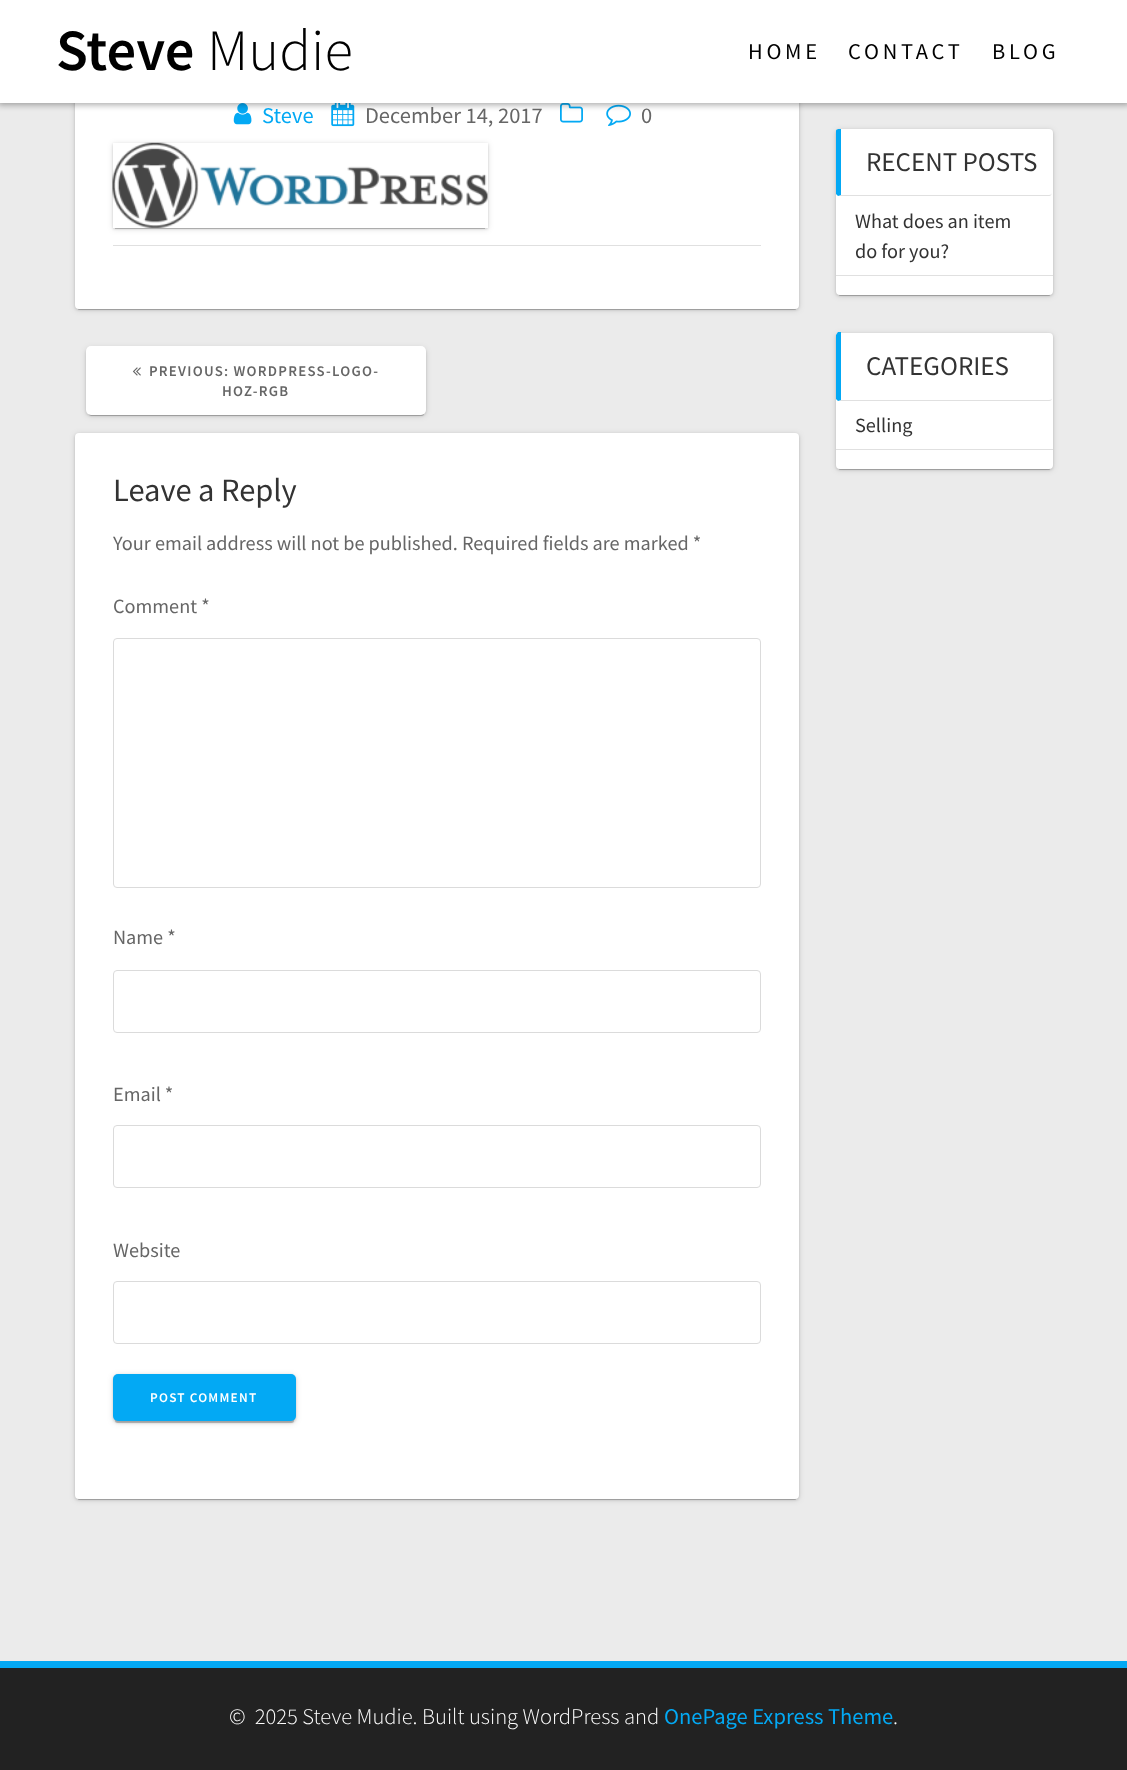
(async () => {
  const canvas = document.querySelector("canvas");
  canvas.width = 1127;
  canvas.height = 1770;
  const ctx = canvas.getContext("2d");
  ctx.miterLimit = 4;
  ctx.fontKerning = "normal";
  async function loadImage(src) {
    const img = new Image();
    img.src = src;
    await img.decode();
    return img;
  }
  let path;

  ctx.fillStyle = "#ebebeb";
  ctx.fillRect(0, 0, 1127, 1770);
  ctx.fillStyle = "rgba(0, 0, 0, 0.12)";
  ctx.filter = "blur(3px)";
  ctx.beginPath();
  ctx.roundRect(75, -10, 724, 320, 4);
  ctx.fill();
  ctx.filter = "none";
  ctx.fillStyle = "rgba(0, 0, 0, 0.2)";
  ctx.filter = "blur(0.5px)";
  ctx.beginPath();
  ctx.roundRect(78, -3, 718, 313, 1);
  ctx.fill();
  ctx.filter = "none";
  ctx.fillStyle = "rgba(0, 0, 0, 0.14)";
  ctx.filter = "blur(1px)";
  ctx.beginPath();
  ctx.roundRect(75, -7, 724, 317, 4);
  ctx.fill();
  ctx.filter = "none";
  ctx.fillStyle = "#ffffff";
  ctx.beginPath();
  ctx.roundRect(75, -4, 724, 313, 4);
  ctx.fill();
  ctx.drawImage(await loadImage("img/1.png"), 233, 103, 19, 22);
  ctx.drawImage(await loadImage("img/2.png"), 331, 103, 24, 24);
  ctx.drawImage(await loadImage("img/3.png"), 560, 103, 23, 20);
  ctx.drawImage(await loadImage("img/4.png"), 606, 104, 25, 22);
  ctx.fillStyle = "rgba(0, 0, 0, 0.33)";
  ctx.filter = "blur(3px)";
  ctx.beginPath();
  ctx.rect(-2, -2, 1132, 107);
  ctx.fill();
  ctx.filter = "none";
  ctx.fillStyle = "#ffffff";
  ctx.fillRect(0, 0, 1127, 103);
  ctx.fillStyle = "#e0e0e0";
  ctx.fillRect(113, 245, 648, 1);
  ctx.save();
  path = new Path2D("M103 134H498V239H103ZM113 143H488V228H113Z");
  ctx.clip(path, "evenodd");
  ctx.fillStyle = "rgba(0, 0, 0, 0.12)";
  ctx.filter = "blur(3px)";
  ctx.beginPath();
  ctx.rect(113, 144, 375, 85);
  ctx.fill();
  ctx.filter = "none";
  ctx.restore();
  ctx.save();
  path = new Path2D("M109 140H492V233H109ZM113 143H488V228H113Z");
  ctx.clip(path, "evenodd");
  ctx.fillStyle = "rgba(0, 0, 0, 0.14)";
  ctx.filter = "blur(1px)";
  ctx.beginPath();
  ctx.rect(113, 144, 375, 85);
  ctx.fill();
  ctx.filter = "none";
  ctx.restore();
  ctx.save();
  path = new Path2D("M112 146H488V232H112ZM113 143H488V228H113Z");
  ctx.clip(path, "evenodd");
  ctx.fillStyle = "rgba(0, 0, 0, 0.2)";
  ctx.filter = "blur(0.5px)";
  ctx.beginPath();
  ctx.rect(115, 149, 370, 80);
  ctx.fill();
  ctx.filter = "none";
  ctx.restore();
  ctx.drawImage(await loadImage("img/5.png"), 112, 142, 376, 86);
  ctx.fillStyle = "rgba(0, 0, 0, 0.12)";
  ctx.filter = "blur(3px)";
  ctx.beginPath();
  ctx.roundRect(86, 348, 340, 68, 5);
  ctx.fill();
  ctx.filter = "none";
  ctx.fillStyle = "rgba(0, 0, 0, 0.2)";
  ctx.filter = "blur(0.5px)";
  ctx.beginPath();
  ctx.roundRect(89, 353, 335, 63, 2.5);
  ctx.fill();
  ctx.filter = "none";
  ctx.fillStyle = "rgba(0, 0, 0, 0.14)";
  ctx.filter = "blur(1px)";
  ctx.beginPath();
  ctx.roundRect(86, 348, 340, 68, 5);
  ctx.fill();
  ctx.filter = "none";
  ctx.fillStyle = "#ffffff";
  ctx.beginPath();
  ctx.roundRect(86, 346, 340, 69, 5);
  ctx.fill();
  ctx.drawImage(await loadImage("img/6.png"), 132, 367, 9, 9);
  ctx.fillStyle = "rgba(0, 0, 0, 0.12)";
  ctx.filter = "blur(3px)";
  ctx.beginPath();
  ctx.roundRect(75, 434, 724, 1066, 4);
  ctx.fill();
  ctx.filter = "none";
  ctx.fillStyle = "rgba(0, 0, 0, 0.2)";
  ctx.filter = "blur(0.5px)";
  ctx.beginPath();
  ctx.roundRect(78, 439, 718, 1061, 1);
  ctx.fill();
  ctx.filter = "none";
  ctx.fillStyle = "rgba(0, 0, 0, 0.14)";
  ctx.filter = "blur(1px)";
  ctx.beginPath();
  ctx.roundRect(75, 434, 724, 1066, 4);
  ctx.fill();
  ctx.filter = "none";
  ctx.fillStyle = "#ffffff";
  ctx.beginPath();
  ctx.roundRect(75, 433, 724, 1066, 4);
  ctx.fill();
  ctx.beginPath();
  ctx.roundRect(113.5, 638.5, 647, 249, 3.5);
  ctx.strokeStyle = "#dbdbdb";
  ctx.stroke();
  ctx.beginPath();
  ctx.roundRect(113.5, 970.5, 647, 62, 3.5);
  ctx.stroke();
  ctx.beginPath();
  ctx.roundRect(113.5, 1125.5, 647, 62, 3.5);
  ctx.stroke();
  ctx.beginPath();
  ctx.roundRect(113.5, 1281.5, 647, 62, 3.5);
  ctx.stroke();
  ctx.fillStyle = "rgba(0, 0, 0, 0.12)";
  ctx.filter = "blur(3px)";
  ctx.beginPath();
  ctx.roundRect(113, 1375, 183, 48, 5);
  ctx.fill();
  ctx.filter = "none";
  ctx.fillStyle = "rgba(0, 0, 0, 0.2)";
  ctx.filter = "blur(0.5px)";
  ctx.beginPath();
  ctx.roundRect(115, 1380, 179, 43, 2.5);
  ctx.fill();
  ctx.filter = "none";
  ctx.fillStyle = "rgba(0, 0, 0, 0.14)";
  ctx.filter = "blur(1px)";
  ctx.beginPath();
  ctx.roundRect(113, 1375, 183, 48, 5);
  ctx.fill();
  ctx.filter = "none";
  ctx.fillStyle = "#03a9f4";
  ctx.beginPath();
  ctx.roundRect(113, 1374, 183, 47, 5);
  ctx.fill();
  ctx.fillStyle = "rgba(0, 0, 0, 0.12)";
  ctx.filter = "blur(3px)";
  ctx.beginPath();
  ctx.roundRect(836, 130, 217, 166, 4);
  ctx.fill();
  ctx.filter = "none";
  ctx.fillStyle = "rgba(0, 0, 0, 0.2)";
  ctx.filter = "blur(0.5px)";
  ctx.beginPath();
  ctx.roundRect(839, 135, 211, 161, 1);
  ctx.fill();
  ctx.filter = "none";
  ctx.fillStyle = "rgba(0, 0, 0, 0.14)";
  ctx.filter = "blur(1px)";
  ctx.beginPath();
  ctx.roundRect(836, 130, 217, 166, 4);
  ctx.fill();
  ctx.filter = "none";
  ctx.fillStyle = "#ffffff";
  ctx.beginPath();
  ctx.roundRect(836, 129, 217, 166, 4);
  ctx.fill();
  ctx.fillStyle = "#e0e0e0";
  path = new Path2D("M841 195L838 196H1049C1051 196 1052 194 1052 192C1052 194 1051 195 1049 195Z");
  ctx.fill(path);
  ctx.fillStyle = "#03a8f4";
  path = new Path2D("M840 129H841V195L838 196L836 194V131C836 129 839 129 840 129Z");
  ctx.fill(path);
  ctx.fillStyle = "#e0e0e0";
  ctx.fillRect(836, 275, 217, 1);
  ctx.fillStyle = "rgba(0, 0, 0, 0.12)";
  ctx.filter = "blur(3px)";
  ctx.beginPath();
  ctx.roundRect(836, 334, 217, 136, 4);
  ctx.fill();
  ctx.filter = "none";
  ctx.fillStyle = "rgba(0, 0, 0, 0.2)";
  ctx.filter = "blur(0.5px)";
  ctx.beginPath();
  ctx.roundRect(839, 339, 211, 131, 1);
  ctx.fill();
  ctx.filter = "none";
  ctx.fillStyle = "rgba(0, 0, 0, 0.14)";
  ctx.filter = "blur(1px)";
  ctx.beginPath();
  ctx.roundRect(836, 334, 217, 136, 4);
  ctx.fill();
  ctx.filter = "none";
  ctx.fillStyle = "#ffffff";
  ctx.beginPath();
  ctx.roundRect(836, 333, 217, 136, 4);
  ctx.fill();
  ctx.fillStyle = "#e0e0e0";
  path = new Path2D("M841 400L838 401H1049C1051 401 1052 400 1052 398C1052 399 1051 400 1049 400Z");
  ctx.fill(path);
  ctx.fillStyle = "#03a8f4";
  path = new Path2D("M836 335L838 332H841V400L838 401L836 399Z");
  ctx.fill(path);
  for (const [x, y, w, h, color] of [
    [836, 449, 217, 1, "#e0e0e0"],
    [0, 1668, 1127, 102, "#222222"],
    [0, 1661, 1127, 7, "#03a8f4"],
  ]) {
    ctx.fillStyle = color;
    ctx.fillRect(x, y, w, h);
  }
  ctx.font = "600 58.5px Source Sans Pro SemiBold";
  ctx.fillStyle = "#000000";
  ctx.fillText("Steve", 56, 70);
  ctx.font = "300 58.5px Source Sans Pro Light";
  ctx.fillText("Mudie", 207, 70);
  ctx.letterSpacing = "3.75px";
  ctx.font = "22.5px Source Sans Pro";
  for (const [text, x, y] of [
    ["HOME", 748, 59],
    ["CONTACT", 848, 59],
    ["BLOG", 992, 59],
  ]) {
    ctx.fillText(text, x, y);
  }
  ctx.letterSpacing = "0px";
  ctx.fillStyle = "#03a9f4";
  ctx.fillText("Steve", 262, 123);
  ctx.fillStyle = "#666666";
  ctx.fillText("December 14, 2017", 365, 123);
  ctx.fillText("0", 641, 123);
  ctx.letterSpacing = "1.25px";
  ctx.font = "600 14.8px Source Sans Pro SemiBold";
  ctx.fillText("PREVIOUS: WORDPRESS-LOGO-", 149, 376);
  ctx.fillText("HOZ-RGB", 222, 396);
  ctx.letterSpacing = "0px";
  ctx.font = "32.5px Source Sans Pro";
  ctx.fillStyle = "#333333";
  ctx.fillText("Leave a Reply", 113, 501);
  ctx.font = "20.25px Source Sans Pro";
  ctx.fillStyle = "#666666";
  for (const [text, x, y] of [
    ["Your email address will not be published. Required fields are marked *", 113, 550],
    ["Comment *", 113, 613],
    ["Name *", 113, 944],
    ["Email *", 113, 1101],
    ["Website", 113, 1257],
  ]) {
    ctx.fillText(text, x, y);
  }
  ctx.letterSpacing = "1.25px";
  ctx.font = "600 13.25px Source Sans Pro SemiBold";
  ctx.fillStyle = "#ffffff";
  ctx.fillText("POST COMMENT", 150, 1402);
  ctx.letterSpacing = "0px";
  ctx.font = "27px Source Sans Pro";
  ctx.fillStyle = "#333333";
  ctx.fillText("RECENT POSTS", 866, 171);
  ctx.font = "20.25px Source Sans Pro";
  ctx.fillText("What does an item", 855, 228);
  ctx.fillText("do for you?", 855, 258);
  ctx.font = "27px Source Sans Pro";
  ctx.fillText("CATEGORIES", 866, 375);
  ctx.font = "20.25px Source Sans Pro";
  ctx.fillText("Selling", 855, 432);
  ctx.font = "300 22.5px Source Sans Pro Light";
  ctx.fillStyle = "#ffffff";
  ctx.fillText("©  2025 Steve Mudie. Built using WordPress and", 229, 1724);
  ctx.font = "22.5px Source Sans Pro";
  ctx.fillStyle = "#03a9f4";
  ctx.fillText("OnePage Express Theme", 664, 1724);
  ctx.font = "300 22.5px Source Sans Pro Light";
  ctx.fillStyle = "#ffffff";
  ctx.fillText(".", 893, 1724);
})();
